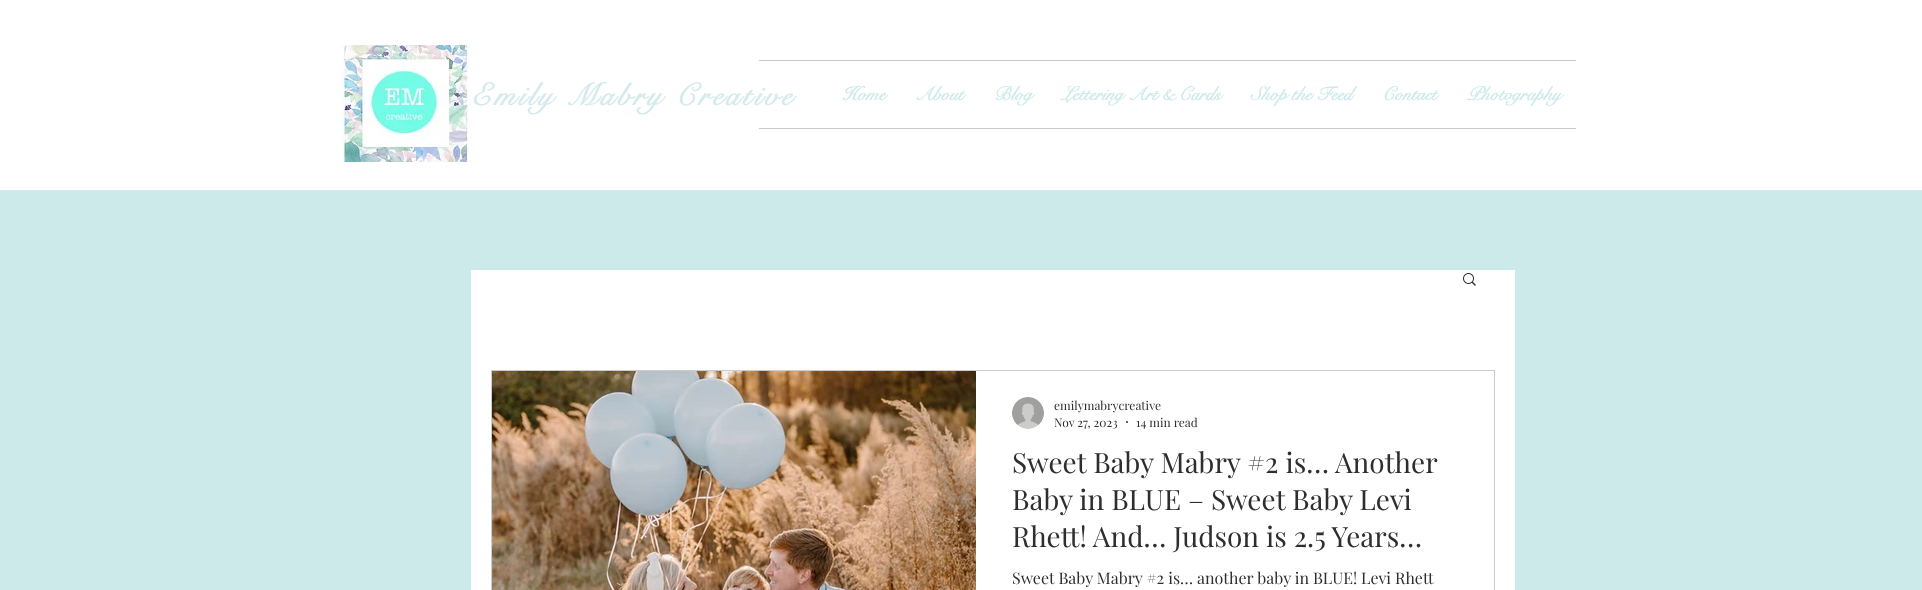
(async () => {
  const canvas = document.querySelector("canvas");
  canvas.width = 1922;
  canvas.height = 590;
  const ctx = canvas.getContext("2d");
  ctx.miterLimit = 4;
  ctx.fontKerning = "normal";
  async function loadImage(src) {
    const img = new Image();
    img.src = src;
    await img.decode();
    return img;
  }

  ctx.fillStyle = "#cceaea";
  ctx.fillRect(0, 0, 1922, 590);
  ctx.fillStyle = "#ffffff";
  ctx.fillRect(0, 0, 1922, 190);
  ctx.drawImage(await loadImage("img/1.png"), 341, 45, 129, 117);
  for (const [x, y, w, h, color] of [
    [759, 60, 817, 1, "#cacaca"],
    [759, 128, 817, 1, "#cacaca"],
    [471, 270, 1044, 320, "#ffffff"],
  ]) {
    ctx.fillStyle = color;
    ctx.fillRect(x, y, w, h);
  }
  ctx.drawImage(await loadImage("img/2.png"), 1463, 273, 13, 13);
  ctx.strokeStyle = "#cccccc";
  ctx.strokeRect(491.5, 370.5, 1003, 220);
  ctx.drawImage(await loadImage("img/3.png"), 492, 371, 484, 219);
  ctx.drawImage(await loadImage("img/4.png"), 1012, 397, 32, 32);
  ctx.fillStyle = "#2f2e2e";
  ctx.beginPath();
  ctx.arc(1127, 422, 1, 0, Math.PI * 2);
  ctx.fill();
  ctx.letterSpacing = "3.1px";
  ctx.font = "bold 31px 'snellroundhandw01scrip'";
  ctx.fillStyle = "#d5eaec";
  ctx.fillText("Emily Mabry Creative", 471, 105);
  ctx.letterSpacing = "0px";
  ctx.font = "bold 19px 'snellroundhandw01scrip'";
  ctx.fillStyle = "#cceaea";
  for (const [text, x, y] of [
    ["Home", 842, 100],
    ["About", 915, 100],
    ["Blog", 994, 100],
    ["Lettering Art & Cards", 1062, 100],
    ["Shop the Feed", 1251, 100],
    ["Contact", 1382, 100],
    ["Photography", 1467, 100],
  ]) {
    ctx.fillText(text, x, y);
  }
  ctx.font = "12px Playfair Display";
  ctx.fillStyle = "#2f2e2e";
  for (const [text, x, y] of [
    ["emilymabrycreative", 1054, 410],
    ["Nov 27, 2023", 1054, 427],
    ["14 min read", 1136, 427],
  ]) {
    ctx.fillText(text, x, y);
  }
  ctx.font = "28px Playfair Display";
  for (const [text, x, y] of [
    ["Sweet Baby Mabry #2 is… Another", 1012, 473],
    ["Baby in BLUE – Sweet Baby Levi", 1012, 510],
    ["Rhett! And… Judson is 2.5 Years…", 1012, 547],
  ]) {
    ctx.fillText(text, x, y);
  }
  ctx.font = "16px Playfair Display";
  ctx.fillText("Sweet Baby Mabry #2 is… another baby in BLUE! Levi Rhett", 1012, 584);
})();
